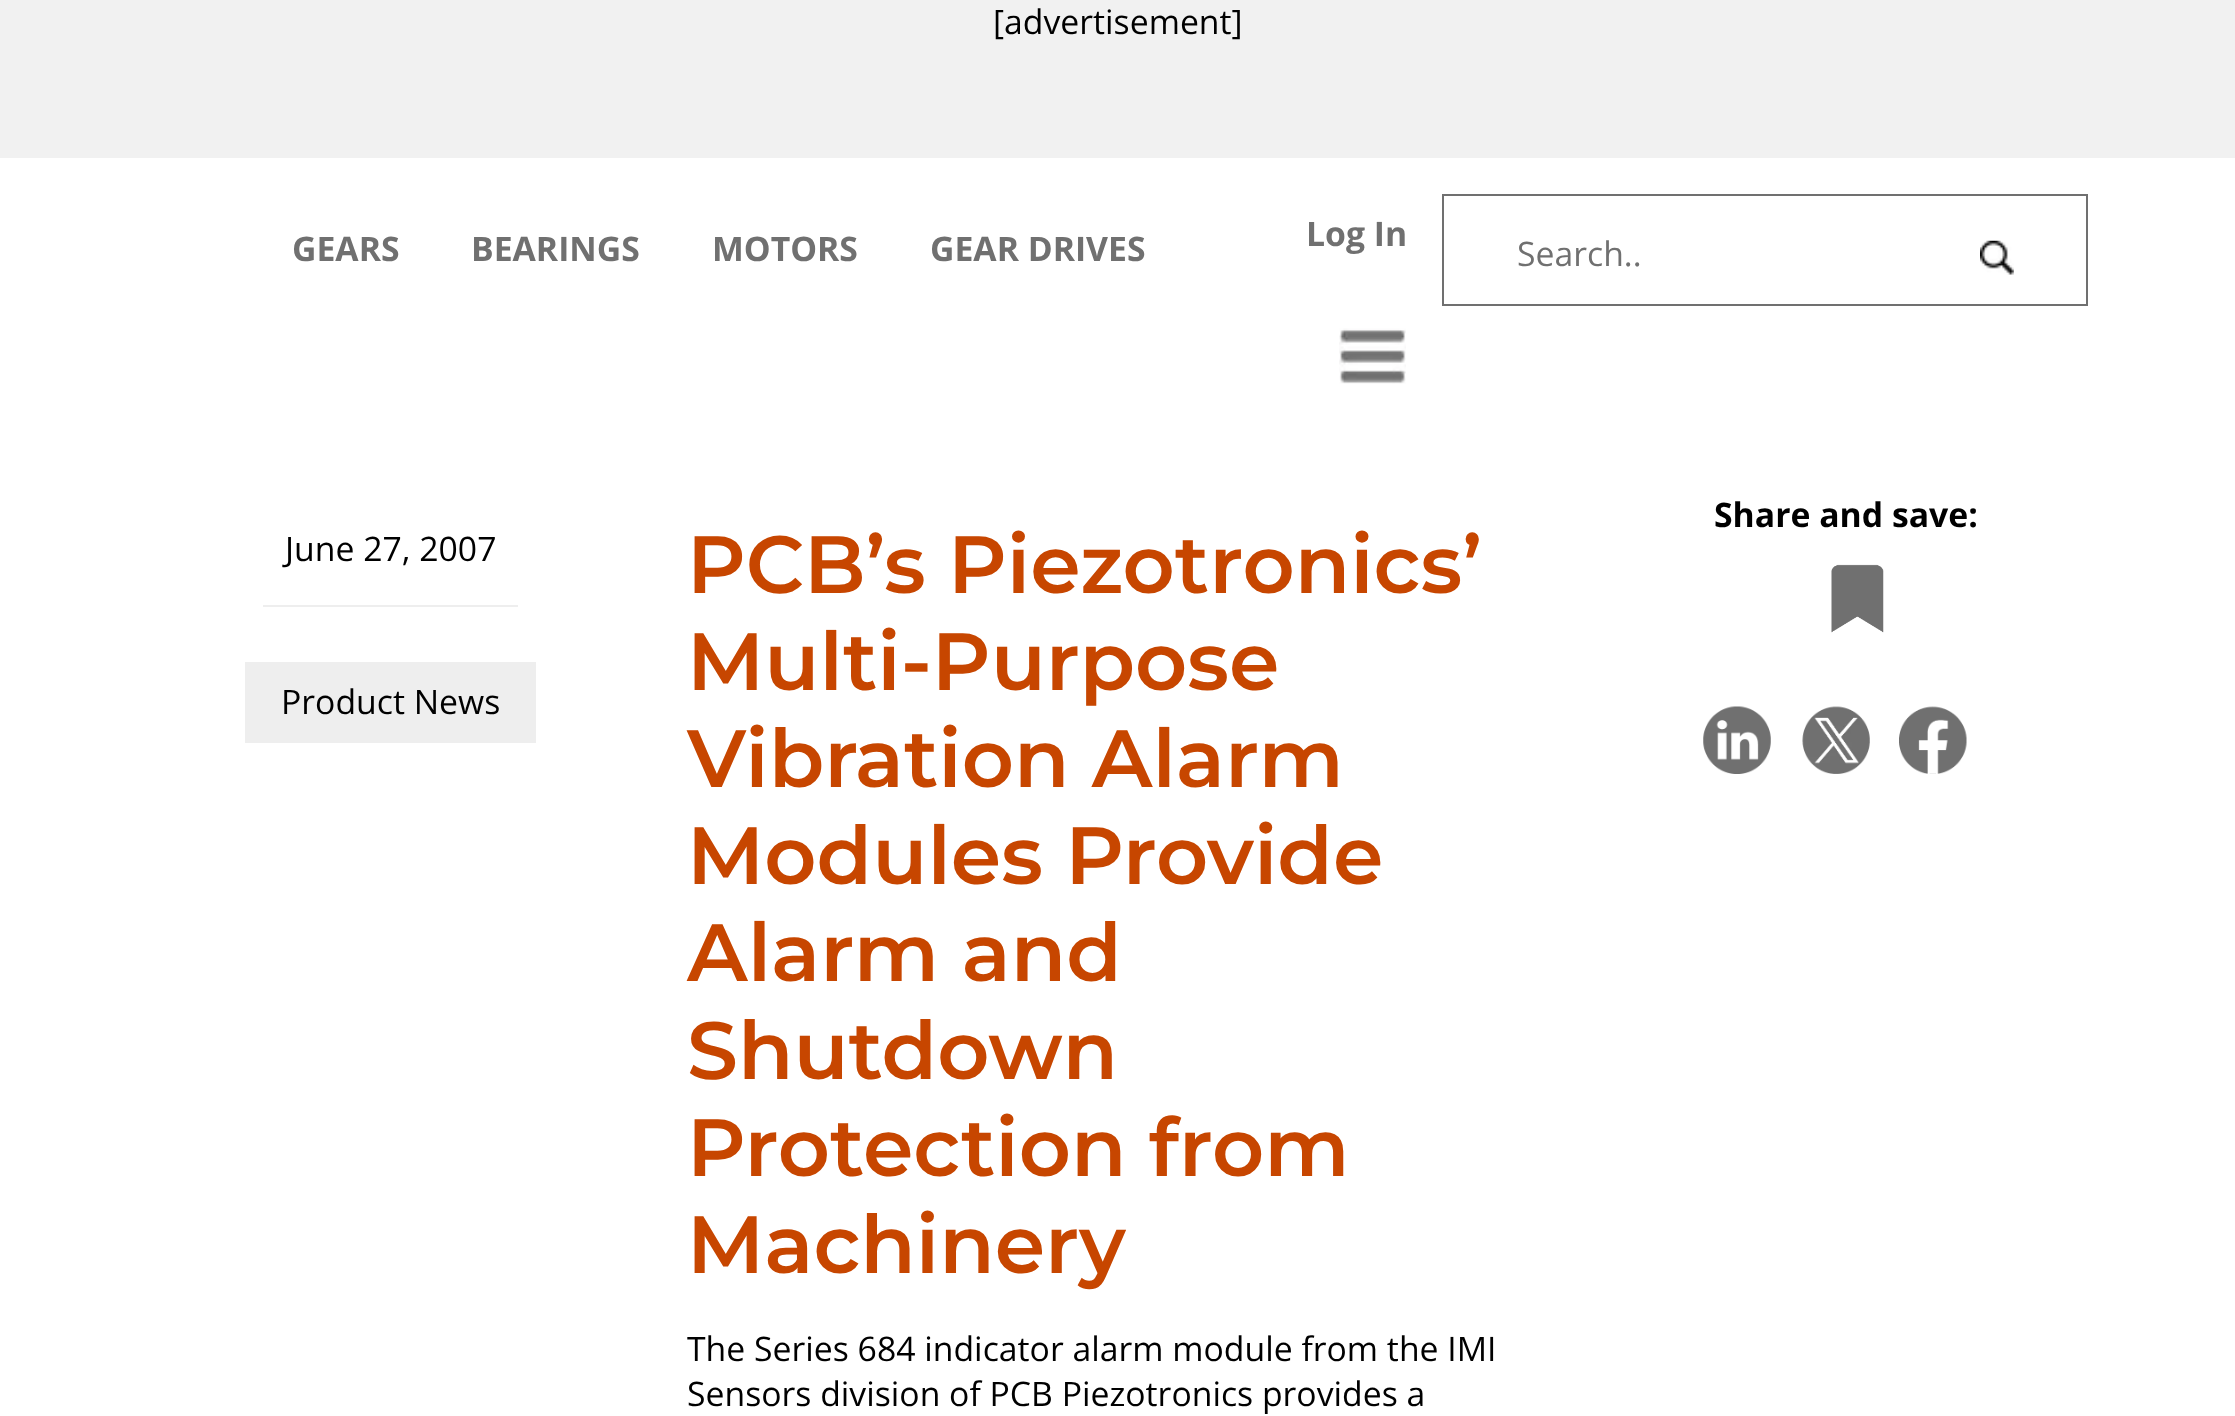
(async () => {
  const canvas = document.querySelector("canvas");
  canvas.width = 2235;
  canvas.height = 1416;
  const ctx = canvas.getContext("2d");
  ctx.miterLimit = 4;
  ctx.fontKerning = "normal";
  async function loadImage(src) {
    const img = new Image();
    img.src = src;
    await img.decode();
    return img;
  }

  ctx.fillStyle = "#ffffff";
  ctx.fillRect(0, 0, 2235, 1416);
  ctx.fillStyle = "#f1f1f1";
  ctx.fillRect(0, 0, 2235, 158);
  ctx.strokeStyle = "#707070";
  ctx.lineWidth = 2;
  ctx.strokeRect(1443, 195, 644, 110);
  ctx.drawImage(await loadImage("img/1.png"), 1980, 240, 34, 35);
  ctx.drawImage(await loadImage("img/2.png"), 1339, 328, 67, 56);
  ctx.drawImage(await loadImage("img/3.png"), 1831, 564, 53, 69);
  ctx.drawImage(await loadImage("img/4.png"), 1703, 706, 68, 68);
  ctx.drawImage(await loadImage("img/5.png"), 1802, 706, 68, 68);
  ctx.drawImage(await loadImage("img/6.png"), 1899, 706, 68, 68);
  ctx.fillStyle = "#eeeeee";
  ctx.fillRect(263, 605, 255, 2);
  ctx.fillRect(245, 662, 291, 81);
  ctx.font = "33.75px Open Sans";
  ctx.fillStyle = "#000000";
  ctx.fillText("[advertisement]", 993, 34);
  ctx.font = "bold 33.75px Open Sans";
  ctx.fillStyle = "#707070";
  for (const [text, x, y] of [
    ["GEARS", 292, 261],
    ["BEARINGS", 471, 261],
    ["MOTORS", 712, 261],
    ["GEAR DRIVES", 930, 261],
    ["Log In", 1306, 246],
  ]) {
    ctx.fillText(text, x, y);
  }
  ctx.font = "33.75px Open Sans";
  ctx.fillText("Search..", 1517, 266);
  ctx.font = "bold 33.75px Open Sans";
  ctx.fillStyle = "#000000";
  ctx.fillText("Share and save:", 1714, 527);
  ctx.font = "33.75px Open Sans";
  ctx.fillText("June 27, 2007", 285, 561);
  ctx.fillText("Product News", 281, 714);
  ctx.font = "600 81px Montserrat";
  ctx.fillStyle = "#c74600";
  for (const [text, x, y] of [
    ["PCB’s Piezotronics’", 687, 593],
    ["Multi-Purpose", 687, 690],
    ["Vibration Alarm", 687, 787],
    ["Modules Provide", 687, 884],
    ["Alarm and", 687, 981],
    ["Shutdown", 687, 1079],
    ["Protection from", 687, 1176],
    ["Machinery", 687, 1273],
  ]) {
    ctx.fillText(text, x, y);
  }
  ctx.font = "33.75px Open Sans";
  ctx.fillStyle = "#000000";
  ctx.fillText("The Series 684 indicator alarm module from the IMI", 687, 1361);
  ctx.fillText("Sensors division of PCB Piezotronics provides a", 687, 1406);
})();
